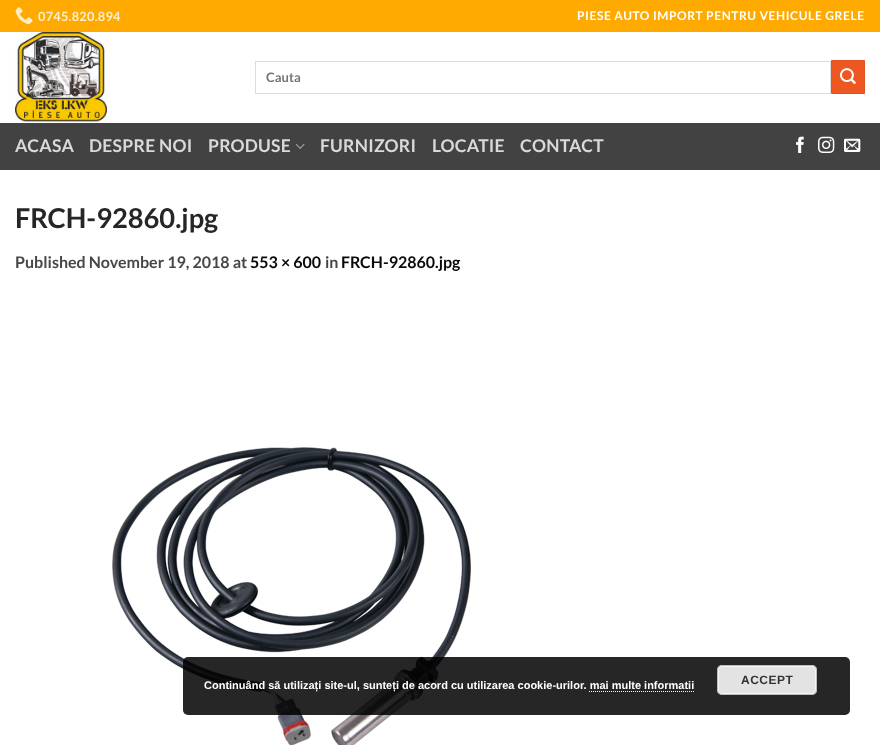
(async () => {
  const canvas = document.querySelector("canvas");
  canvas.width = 880;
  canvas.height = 745;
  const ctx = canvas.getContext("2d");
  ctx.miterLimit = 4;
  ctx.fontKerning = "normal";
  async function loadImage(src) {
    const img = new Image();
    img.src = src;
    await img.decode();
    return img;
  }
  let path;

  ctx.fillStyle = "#ffffff";
  ctx.fillRect(0, 0, 880, 745);
  ctx.fillStyle = "#ffaa00";
  ctx.fillRect(0, 0, 880, 32);
  ctx.drawImage(await loadImage("img/1.png"), 15, 7, 18, 18);
  ctx.drawImage(await loadImage("img/2.png"), 15, 32, 92, 90);
  ctx.strokeStyle = "#dddddd";
  ctx.strokeRect(255.5, 61.5, 575, 32);
  ctx.fillStyle = "#ed5721";
  ctx.beginPath();
  ctx.rect(831.5, 60.5, 33, 33);
  ctx.fill();
  ctx.strokeStyle = "#e1531f";
  ctx.stroke();
  ctx.drawImage(await loadImage("img/3.png"), 840, 68, 16, 16);
  ctx.fillStyle = "#424242";
  ctx.fillRect(0, 123, 880, 47);
  ctx.drawImage(await loadImage("img/4.png"), 295, 143, 10, 6);
  ctx.drawImage(await loadImage("img/5.png"), 796, 136, 8, 17);
  ctx.drawImage(await loadImage("img/6.png"), 818, 136, 17, 17);
  ctx.drawImage(await loadImage("img/7.png"), 844, 138, 17, 14);
  ctx.drawImage(await loadImage("img/8.png"), 112, 447, 359, 298);
  ctx.fillStyle = "rgba(0, 0, 0, 0.85)";
  ctx.beginPath();
  ctx.roundRect(183, 657, 667, 58, 5);
  ctx.fill();
  ctx.fillStyle = "#e3e3e3";
  ctx.beginPath();
  ctx.roundRect(717, 665, 100, 30, 5);
  ctx.fill();
  ctx.beginPath();
  ctx.roundRect(718.5, 666.5, 97, 27, 3.5);
  ctx.strokeStyle = "#f6f6f6";
  ctx.stroke();
  ctx.beginPath();
  ctx.roundRect(717.5, 665.5, 99, 29, 4.5);
  ctx.strokeStyle = "#bbbbbb";
  ctx.stroke();
  path = new Path2D("M589 691.5H694");
  ctx.strokeStyle = "#ffffff";
  ctx.setLineDash([1, 1]);
  ctx.stroke(path);
  ctx.letterSpacing = "0.25px";
  ctx.font = "bold 12.75px Lato";
  ctx.fillStyle = "#ffeecc";
  ctx.fillText("0745.820.894", 38, 21);
  ctx.letterSpacing = "0.6px";
  ctx.font = "bold 12px Lato";
  ctx.fillStyle = "#ffffff";
  ctx.fillText("PIESE AUTO IMPORT PENTRU VEHICULE GRELE", 577, 20);
  ctx.letterSpacing = "0px";
  ctx.font = "bold 13px Lato";
  ctx.fillStyle = "#757575";
  ctx.fillText("Cauta", 266, 82);
  ctx.letterSpacing = "0.25px";
  ctx.font = "bold 17.5px Lato";
  ctx.fillStyle = "#d9d9d9";
  for (const [text, x, y] of [
    ["ACASA", 15, 152],
    ["DESPRE NOI", 89, 152],
    ["PRODUSE", 208, 152],
    ["FURNIZORI", 320, 152],
    ["LOCATIE", 432, 152],
    ["CONTACT", 520, 152],
  ]) {
    ctx.fillText(text, x, y);
  }
  ctx.letterSpacing = "0px";
  ctx.font = "bold 27.25px Lato";
  ctx.fillStyle = "#262626";
  ctx.fillText("FRCH-92860.jpg", 15, 228);
  ctx.font = "bold 16px Lato";
  ctx.fillStyle = "#474747";
  ctx.fillText("Published November 19, 2018 at", 15, 268);
  ctx.fillStyle = "#0a0a0a";
  ctx.fillText("553 × 600", 250, 268);
  ctx.fillStyle = "#474747";
  ctx.fillText("in", 325, 268);
  ctx.fillStyle = "#0a0a0a";
  ctx.fillText("FRCH-92860.jpg", 341, 268);
  ctx.font = "bold 11px Liberation Sans";
  ctx.fillStyle = "#ffffff";
  ctx.fillText("Continuând să utilizați site-ul, sunteți de acord cu utilizarea cookie-urilor. mai multe informatii", 204, 689);
  ctx.letterSpacing = "0.5px";
  ctx.font = "bold 12px Liberation Sans";
  ctx.fillStyle = "#333333";
  ctx.fillText("ACCEPT", 741, 684);
})();
